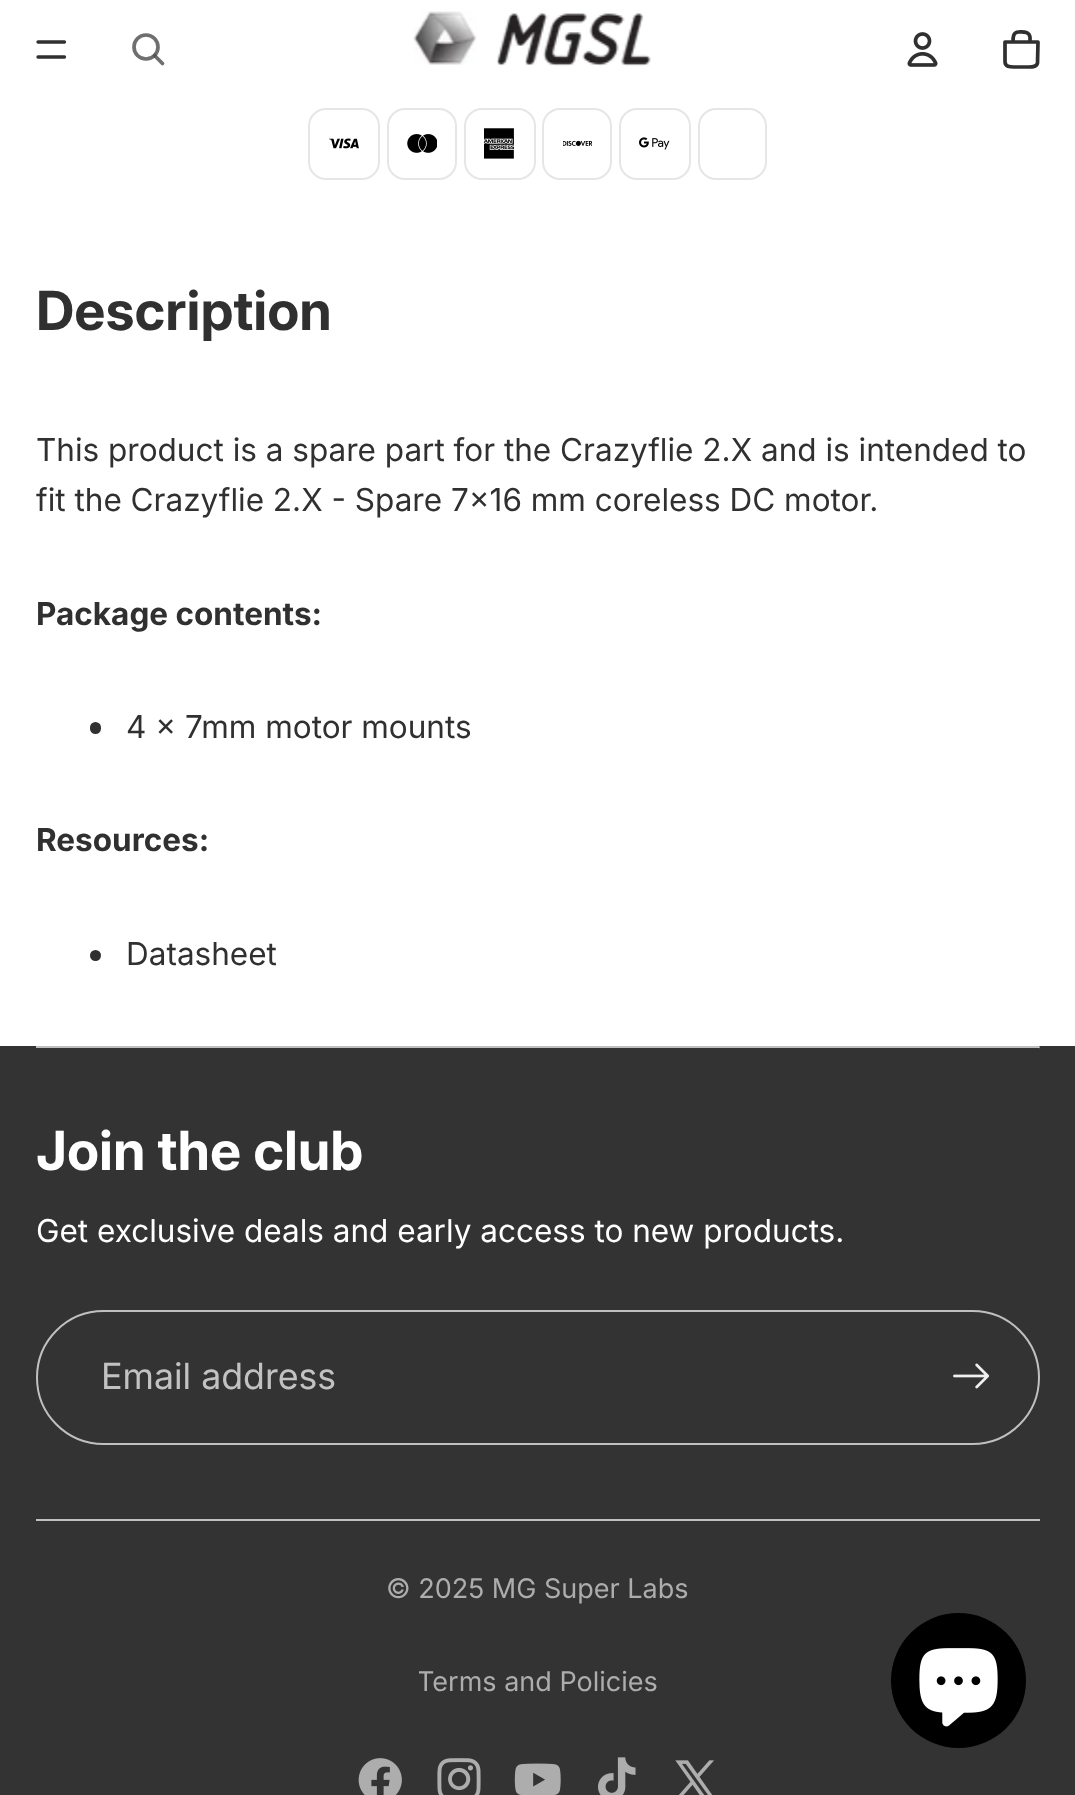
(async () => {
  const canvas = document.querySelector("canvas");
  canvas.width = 1075;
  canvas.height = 1795;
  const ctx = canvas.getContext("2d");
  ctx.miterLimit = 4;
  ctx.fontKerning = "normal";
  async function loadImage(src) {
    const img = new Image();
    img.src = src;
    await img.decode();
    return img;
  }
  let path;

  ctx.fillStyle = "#ffffff";
  ctx.fillRect(0, 0, 1075, 1795);
  path = new Path2D("M38 42H64.5M38 57H64.5");
  ctx.strokeStyle = "#303030";
  ctx.lineWidth = 3.3;
  ctx.lineCap = "round";
  ctx.stroke(path);
  ctx.beginPath();
  ctx.arc(146, 47, 12, 0, Math.PI * 2);
  ctx.strokeStyle = "#6f6f6f";
  ctx.lineWidth = 3.7;
  ctx.stroke();
  path = new Path2D("M154.5 55.5L162.5 63.5");
  ctx.strokeStyle = "rgba(77, 77, 77, 0.81)";
  ctx.lineJoin = "round";
  ctx.stroke(path);
  ctx.drawImage(await loadImage("img/1.png"), 413, 11, 238, 55);
  ctx.drawImage(await loadImage("img/2.png"), 907, 32, 31, 35);
  path = new Path2D("M1005 42H1038L1037.5 63C1036.5 67 1032.5 67 1029 67H1014C1010 67 1005 67 1005 61.5ZM1018.5 32C1023 32 1029 31 1030 37V42H1013C1013 37.5 1013 32 1018.5 32");
  ctx.strokeStyle = "#303030";
  ctx.stroke(path);
  ctx.beginPath();
  ctx.roundRect(309, 109, 70, 70, 17);
  ctx.strokeStyle = "#e6e6e6";
  ctx.lineWidth = 2;
  ctx.lineJoin = "miter";
  ctx.stroke();
  ctx.drawImage(await loadImage("img/3.png"), 329, 138, 30, 11);
  ctx.beginPath();
  ctx.roundRect(388, 109, 68, 70, 17);
  ctx.stroke();
  ctx.drawImage(await loadImage("img/4.png"), 407, 134, 30, 19);
  ctx.beginPath();
  ctx.roundRect(465, 109, 70, 70, 17);
  ctx.stroke();
  ctx.drawImage(await loadImage("img/5.png"), 484, 128, 31, 31);
  ctx.beginPath();
  ctx.roundRect(543, 109, 68, 70, 17);
  ctx.stroke();
  ctx.drawImage(await loadImage("img/6.png"), 563, 140, 29, 6);
  ctx.beginPath();
  ctx.roundRect(620, 109, 70, 70, 17);
  ctx.stroke();
  ctx.drawImage(await loadImage("img/7.png"), 639, 137, 31, 13);
  ctx.beginPath();
  ctx.roundRect(699, 109, 67, 70, 17);
  ctx.stroke();
  ctx.fillStyle = "#303030";
  ctx.beginPath();
  ctx.roundRect(90, 722, 11, 12, 5.5);
  ctx.fill();
  ctx.beginPath();
  ctx.arc(95.5, 955.5, 5.5, 0, Math.PI * 2);
  ctx.fill();
  ctx.fillStyle = "#333333";
  ctx.fillRect(0, 1046, 1075, 749);
  ctx.fillStyle = "#c0c0c0";
  path = new Path2D("M1039.5 1046V1048.5L1037 1046Z");
  ctx.fill(path);
  ctx.fillStyle = "rgba(255, 255, 255, 0.69)";
  path = new Path2D("M1040 1048H36V1046H1037Z");
  ctx.fill(path);
  ctx.beginPath();
  ctx.roundRect(37, 1311, 1002, 133, 66.5);
  ctx.strokeStyle = "#c0c0c0";
  ctx.stroke();
  ctx.drawImage(await loadImage("img/8.png"), 953, 1363, 37, 26);
  ctx.fillStyle = "#c0c0c0";
  ctx.fillRect(36, 1519, 1004, 2);
  ctx.drawImage(await loadImage("img/9.png"), 358, 1758, 44, 37);
  ctx.drawImage(await loadImage("img/10.png"), 437, 1758, 44, 37);
  ctx.drawImage(await loadImage("img/11.png"), 514, 1763, 47, 32);
  ctx.drawImage(await loadImage("img/12.png"), 598, 1757, 38, 38);
  ctx.drawImage(await loadImage("img/13.png"), 675, 1760, 39, 35);
  ctx.fillStyle = "#000000";
  ctx.beginPath();
  ctx.arc(958.5, 1680.5, 67.5, 0, Math.PI * 2);
  ctx.fill();
  ctx.drawImage(await loadImage("img/14.png"), 919, 1648, 79, 79);
  ctx.font = "bold 54px Inter";
  ctx.fillStyle = "#303030";
  ctx.fillText("Description", 36, 330);
  ctx.font = "31.5px Inter";
  ctx.fillText("This product is a spare part for the Crazyflie 2.X and is intended to", 36, 461);
  ctx.fillText("fit the Crazyflie 2.X - Spare 7x16 mm coreless DC motor.", 36, 511);
  ctx.font = "bold 31.5px 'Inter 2'";
  ctx.fillText("Package contents:", 36, 625);
  ctx.font = "31.5px Inter";
  ctx.fillText("4 x 7mm motor mounts", 126, 738);
  ctx.font = "bold 31.5px 'Inter 2'";
  ctx.fillText("Resources:", 36, 851);
  ctx.font = "31.5px Inter";
  ctx.fillText("Datasheet", 126, 965);
  ctx.font = "bold 54px Inter";
  ctx.fillStyle = "#ffffff";
  ctx.fillText("Join the club", 36, 1170);
  ctx.font = "31.5px Inter";
  ctx.fillText("Get exclusive deals and early access to new products.", 36, 1242);
  ctx.font = "36px 'Inter 2'";
  ctx.fillStyle = "#c2c2c2";
  ctx.fillText("Email address", 101, 1389);
  ctx.font = "27px Inter";
  ctx.fillStyle = "#adadad";
  ctx.fillText("© 2025 MG Super Labs", 386, 1598);
  ctx.save();
  ctx.beginPath();
  ctx.rect(419, 1665, 238, 34);
  ctx.clip();
  ctx.fillText("Terms and Policies", 417, 1691);
  ctx.restore();
})();
